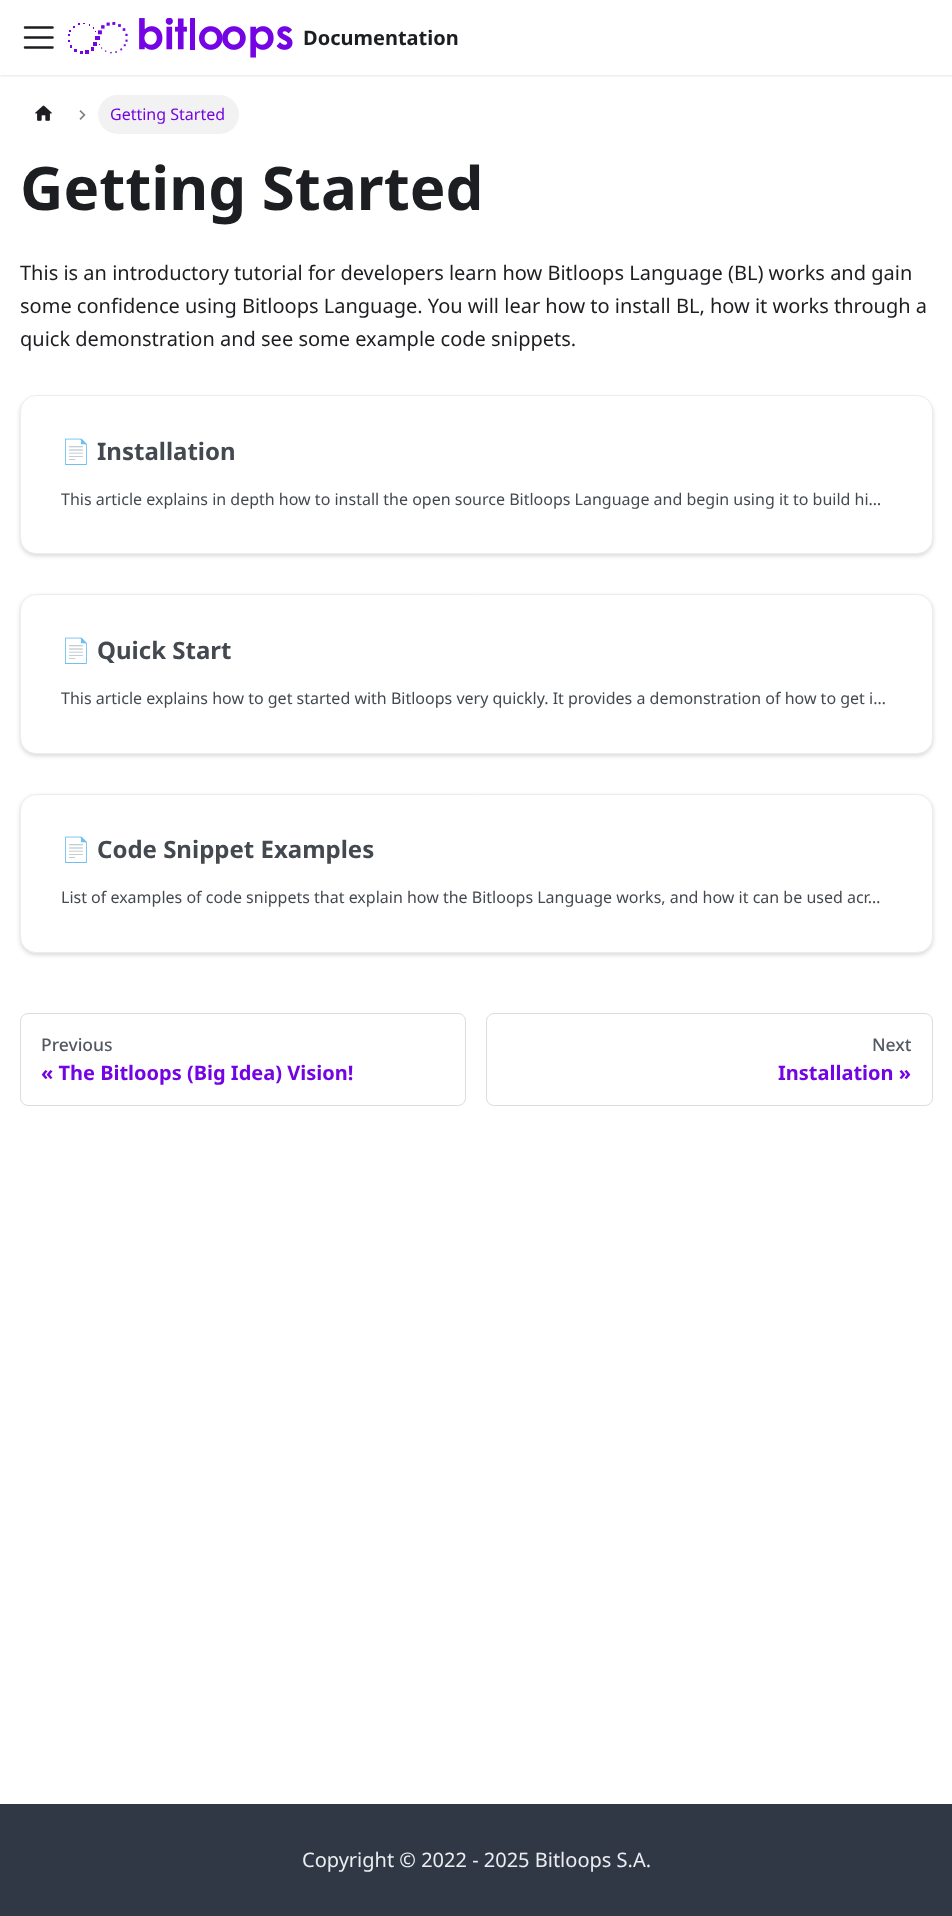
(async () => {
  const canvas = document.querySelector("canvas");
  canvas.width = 952;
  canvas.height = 1916;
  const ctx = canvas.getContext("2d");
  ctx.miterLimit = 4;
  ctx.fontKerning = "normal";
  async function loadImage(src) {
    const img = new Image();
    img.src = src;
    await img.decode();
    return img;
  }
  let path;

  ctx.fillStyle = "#ffffff";
  ctx.fillRect(0, 0, 952, 1916);
  ctx.save();
  ctx.beginPath();
  ctx.rect(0, 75, 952, 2);
  ctx.clip();
  ctx.fillStyle = "rgba(0, 0, 0, 0.1)";
  ctx.filter = "blur(1px)";
  ctx.beginPath();
  ctx.rect(0, 1, 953, 75);
  ctx.fill();
  ctx.filter = "none";
  ctx.restore();
  path = new Path2D("M25 27.5H52.5M25 37.5H52.5M25 47.5H52.5");
  ctx.strokeStyle = "#1c1e21";
  ctx.lineWidth = 2.5;
  ctx.lineCap = "round";
  ctx.stroke(path);
  ctx.drawImage(await loadImage("img/1.png"), 68, 18, 225, 40);
  ctx.drawImage(await loadImage("img/2.png"), 35, 105, 17, 16);
  ctx.drawImage(await loadImage("img/3.png"), 79, 110, 7, 10);
  ctx.fillStyle = "#f2f2f2";
  ctx.beginPath();
  ctx.roundRect(98, 95, 141, 39, 19.5);
  ctx.fill();
  ctx.fillStyle = "rgba(0, 0, 0, 0.15)";
  ctx.filter = "blur(2px)";
  ctx.beginPath();
  ctx.roundRect(20, 398, 913, 158, 16);
  ctx.fill();
  ctx.filter = "none";
  ctx.fillStyle = "#ffffff";
  ctx.beginPath();
  ctx.roundRect(20.5, 395.5, 912, 158, 15.5);
  ctx.fill();
  ctx.strokeStyle = "#ebedf0";
  ctx.lineWidth = 1;
  ctx.stroke();
  ctx.fillStyle = "rgba(0, 0, 0, 0.15)";
  ctx.filter = "blur(2px)";
  ctx.beginPath();
  ctx.roundRect(20, 596, 913, 160, 16);
  ctx.fill();
  ctx.filter = "none";
  ctx.fillStyle = "#ffffff";
  ctx.beginPath();
  ctx.roundRect(20.5, 594.5, 912, 159, 15.5);
  ctx.fill();
  ctx.stroke();
  ctx.fillStyle = "rgba(0, 0, 0, 0.15)";
  ctx.filter = "blur(2px)";
  ctx.beginPath();
  ctx.roundRect(20, 796, 913, 159, 16);
  ctx.fill();
  ctx.filter = "none";
  ctx.fillStyle = "#ffffff";
  ctx.beginPath();
  ctx.roundRect(20.5, 794.5, 912, 158, 15.5);
  ctx.fill();
  ctx.stroke();
  ctx.beginPath();
  ctx.roundRect(20.5, 1013.5, 445, 92, 7.5);
  ctx.strokeStyle = "#dadde1";
  ctx.stroke();
  ctx.beginPath();
  ctx.roundRect(486.5, 1013.5, 446, 92, 7.5);
  ctx.stroke();
  ctx.fillStyle = "#303846";
  ctx.fillRect(0, 1804, 952, 112);
  ctx.font = "bold 20px Noto Sans";
  ctx.fillStyle = "#1c1e21";
  ctx.fillText("Documentation", 303, 45);
  ctx.font = "16px Noto Sans";
  ctx.fillStyle = "#7404e4";
  ctx.fillText("Getting Started", 110, 120);
  ctx.font = "bold 60px Noto Sans";
  ctx.fillStyle = "#1c1e21";
  ctx.fillText("Getting Started", 20, 210);
  ctx.font = "20px Noto Sans";
  for (const [text, x, y] of [
    ["This is an introductory tutorial for developers learn how Bitloops Language (BL) works and gain", 20, 280],
    ["some confidence using Bitloops Language. You will lear how to install BL, how it works through a", 20, 313],
    ["quick demonstration and see some example code snippets.", 20, 346],
  ]) {
    ctx.fillText(text, x, y);
  }
  ctx.font = "bold 24px Noto Color Emoji";
  ctx.fillStyle = "#444950";
  ctx.fillText("📄️", 61, 460);
  ctx.font = "bold 24px Noto Sans";
  ctx.fillText("Installation", 97, 460);
  ctx.font = "16px Noto Sans";
  ctx.fillText("This article explains in depth how to install the open source Bitloops Language and begin using it to build hi…", 61, 505);
  ctx.font = "bold 24px Noto Color Emoji";
  ctx.fillText("📄️", 61, 659);
  ctx.font = "bold 24px Noto Sans";
  ctx.fillText("Quick Start", 97, 659);
  ctx.font = "16px Noto Sans";
  ctx.fillText("This article explains how to get started with Bitloops very quickly. It provides a demonstration of how to get i…", 61, 704);
  ctx.font = "bold 24px Noto Color Emoji";
  ctx.fillText("📄️", 61, 858);
  ctx.font = "bold 24px Noto Sans";
  ctx.fillText("Code Snippet Examples", 97, 858);
  ctx.font = "16px Noto Sans";
  ctx.fillText("List of examples of code snippets that explain how the Bitloops Language works, and how it can be used acr…", 61, 903);
  ctx.font = "500 17.5px Noto Sans";
  ctx.fillStyle = "#525860";
  ctx.fillText("Previous", 41, 1051);
  ctx.font = "bold 20px Noto Sans";
  ctx.fillStyle = "#7404e4";
  ctx.fillText("« The Bitloops (Big Idea) Vision!", 41, 1080);
  ctx.font = "500 17.5px Noto Sans";
  ctx.fillStyle = "#525860";
  ctx.fillText("Next", 872, 1051);
  ctx.font = "bold 20px Noto Sans";
  ctx.fillStyle = "#7404e4";
  ctx.fillText("Installation »", 778, 1080);
  ctx.font = "20px Noto Sans";
  ctx.fillStyle = "#ebedf0";
  ctx.fillText("Copyright © 2022 - 2025 Bitloops S.A.", 302, 1867);
})();
